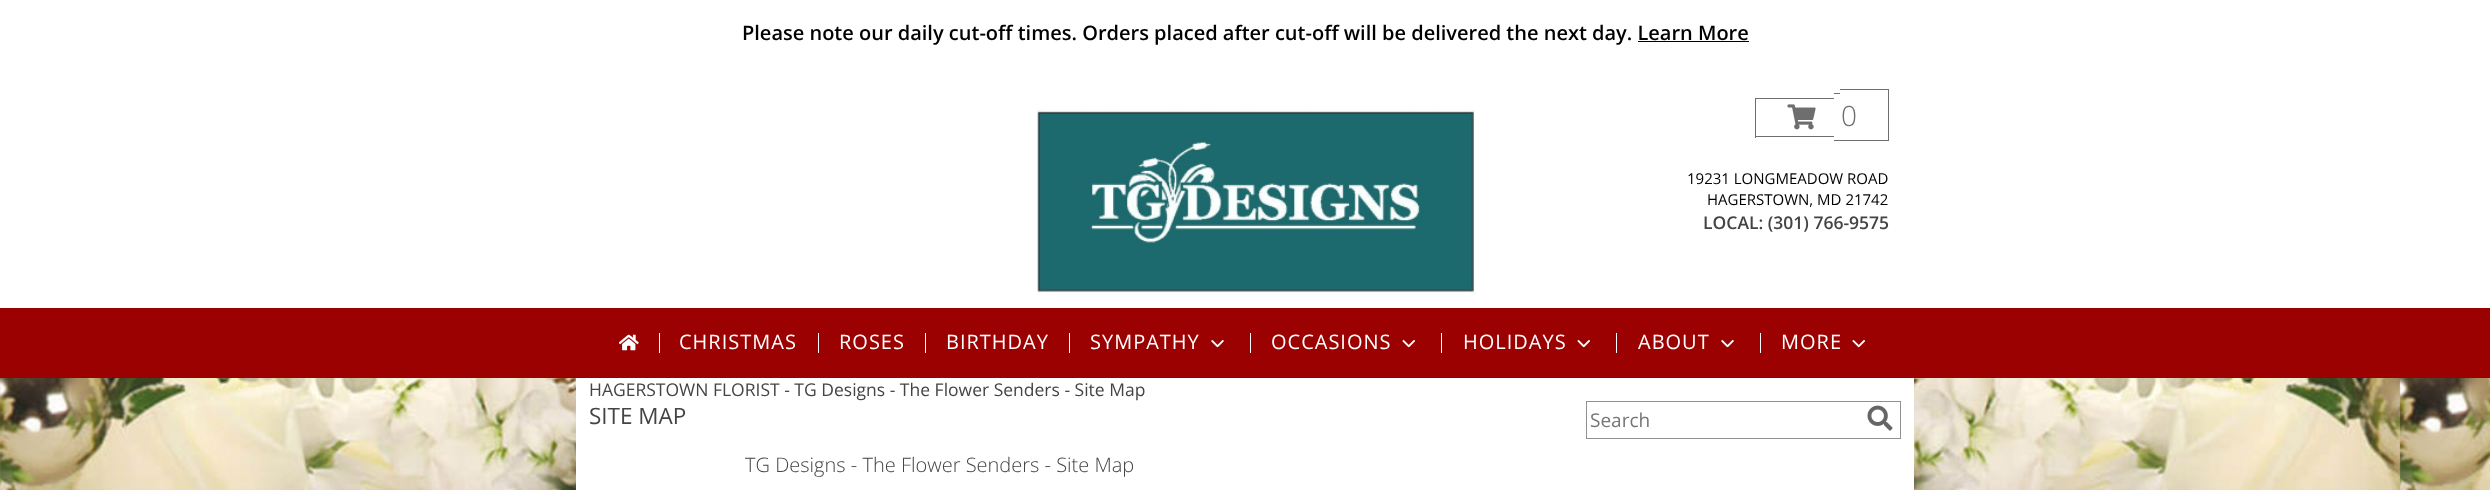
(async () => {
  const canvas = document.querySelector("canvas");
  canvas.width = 2490;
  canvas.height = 490;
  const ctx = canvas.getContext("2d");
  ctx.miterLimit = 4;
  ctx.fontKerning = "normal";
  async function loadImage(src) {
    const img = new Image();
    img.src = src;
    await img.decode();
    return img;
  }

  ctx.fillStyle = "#ffffff";
  ctx.fillRect(0, 0, 2490, 490);
  ctx.drawImage(await loadImage("img/1.png"), 0, 378, 2490, 112);
  ctx.fillRect(576, 378, 1338, 112);
  ctx.fillStyle = "#000000";
  ctx.fillRect(1638, 41, 111, 1);
  ctx.drawImage(await loadImage("img/2.png"), 1037, 109, 439, 186);
  for (const [x, y, w, h, color] of [
    [1755, 98, 79, 1, "#6e6e6e"],
    [1755, 136, 79, 1, "#6e6e6e"],
    [1755, 98, 1, 40, "#6e6e6e"],
    [1834, 93, 6, 1, "#6e6e6e"],
    [1834, 140, 6, 1, "#6e6e6e"],
    [1840, 89, 49, 1, "#6e6e6e"],
    [1888, 89, 1, 52, "#6e6e6e"],
    [1840, 140, 49, 1, "#6e6e6e"],
  ]) {
    ctx.fillStyle = color;
    ctx.fillRect(x, y, w, h);
  }
  ctx.drawImage(await loadImage("img/3.png"), 1787, 104, 29, 26);
  ctx.fillStyle = "#9b0101";
  ctx.fillRect(0, 308, 2490, 70);
  ctx.drawImage(await loadImage("img/4.png"), 619, 334, 20, 17);
  for (const [x, y, w, h, color] of [
    [659, 333, 1, 20, "#ffffff"],
    [818, 333, 1, 20, "#ffffff"],
    [925, 333, 1, 20, "#ffffff"],
    [1069, 333, 1, 20, "#ffffff"],
  ]) {
    ctx.fillStyle = color;
    ctx.fillRect(x, y, w, h);
  }
  ctx.drawImage(await loadImage("img/5.png"), 1211, 340, 13, 8);
  ctx.fillRect(1250, 333, 1, 20);
  ctx.drawImage(await loadImage("img/6.png"), 1402, 340, 13, 8);
  ctx.fillRect(1441, 333, 1, 20);
  ctx.drawImage(await loadImage("img/6.png"), 1577, 340, 13, 8);
  ctx.fillRect(1616, 333, 1, 20);
  ctx.drawImage(await loadImage("img/5.png"), 1721, 340, 13, 8);
  ctx.fillRect(1760, 333, 1, 20);
  ctx.drawImage(await loadImage("img/6.png"), 1852, 340, 13, 8);
  ctx.strokeStyle = "#919191";
  ctx.strokeRect(1586.5, 401.5, 314, 37);
  ctx.drawImage(await loadImage("img/7.png"), 1867, 405, 26, 26);
  ctx.font = "600 20px Open Sans";
  ctx.fillStyle = "#000000";
  ctx.fillText("Please note our daily cut-off times. Orders placed after cut-off will be delivered the next day. Learn More", 742, 40);
  ctx.font = "300 28px Open Sans";
  ctx.fillStyle = "#6e6e6e";
  ctx.fillText("0", 1841, 126);
  ctx.font = "15px Open Sans";
  ctx.fillStyle = "#000000";
  ctx.fillText("19231 LONGMEADOW ROAD", 1687, 184);
  ctx.fillText("HAGERSTOWN, MD 21742", 1707, 205);
  ctx.font = "600 17.5px Open Sans";
  ctx.fillStyle = "#444444";
  ctx.fillText("LOCAL: (301) 766-9575", 1703, 229);
  ctx.letterSpacing = "1px";
  ctx.font = "20px Open Sans";
  ctx.fillStyle = "#ffffff";
  for (const [text, x, y] of [
    ["CHRISTMAS", 679, 349],
    ["ROSES", 839, 349],
    ["BIRTHDAY", 946, 349],
    ["SYMPATHY", 1090, 349],
    ["OCCASIONS", 1271, 349],
    ["HOLIDAYS", 1463, 349],
    ["ABOUT", 1638, 349],
    ["MORE", 1781, 349],
  ]) {
    ctx.fillText(text, x, y);
  }
  ctx.letterSpacing = "0px";
  ctx.font = "17.5px Open Sans";
  ctx.fillStyle = "#444444";
  ctx.fillText("HAGERSTOWN FLORIST - TG Designs - The Flower Senders - Site Map", 589, 396);
  ctx.font = "22.5px Open Sans";
  ctx.fillText("SITE MAP", 589, 424);
  ctx.font = "19px Open Sans";
  ctx.fillStyle = "#757575";
  ctx.fillText("Search", 1590, 427);
  ctx.font = "300 20px Open Sans";
  ctx.fillStyle = "#444444";
  ctx.fillText("TG Designs - The Flower Senders - Site Map", 745, 472);
})();
